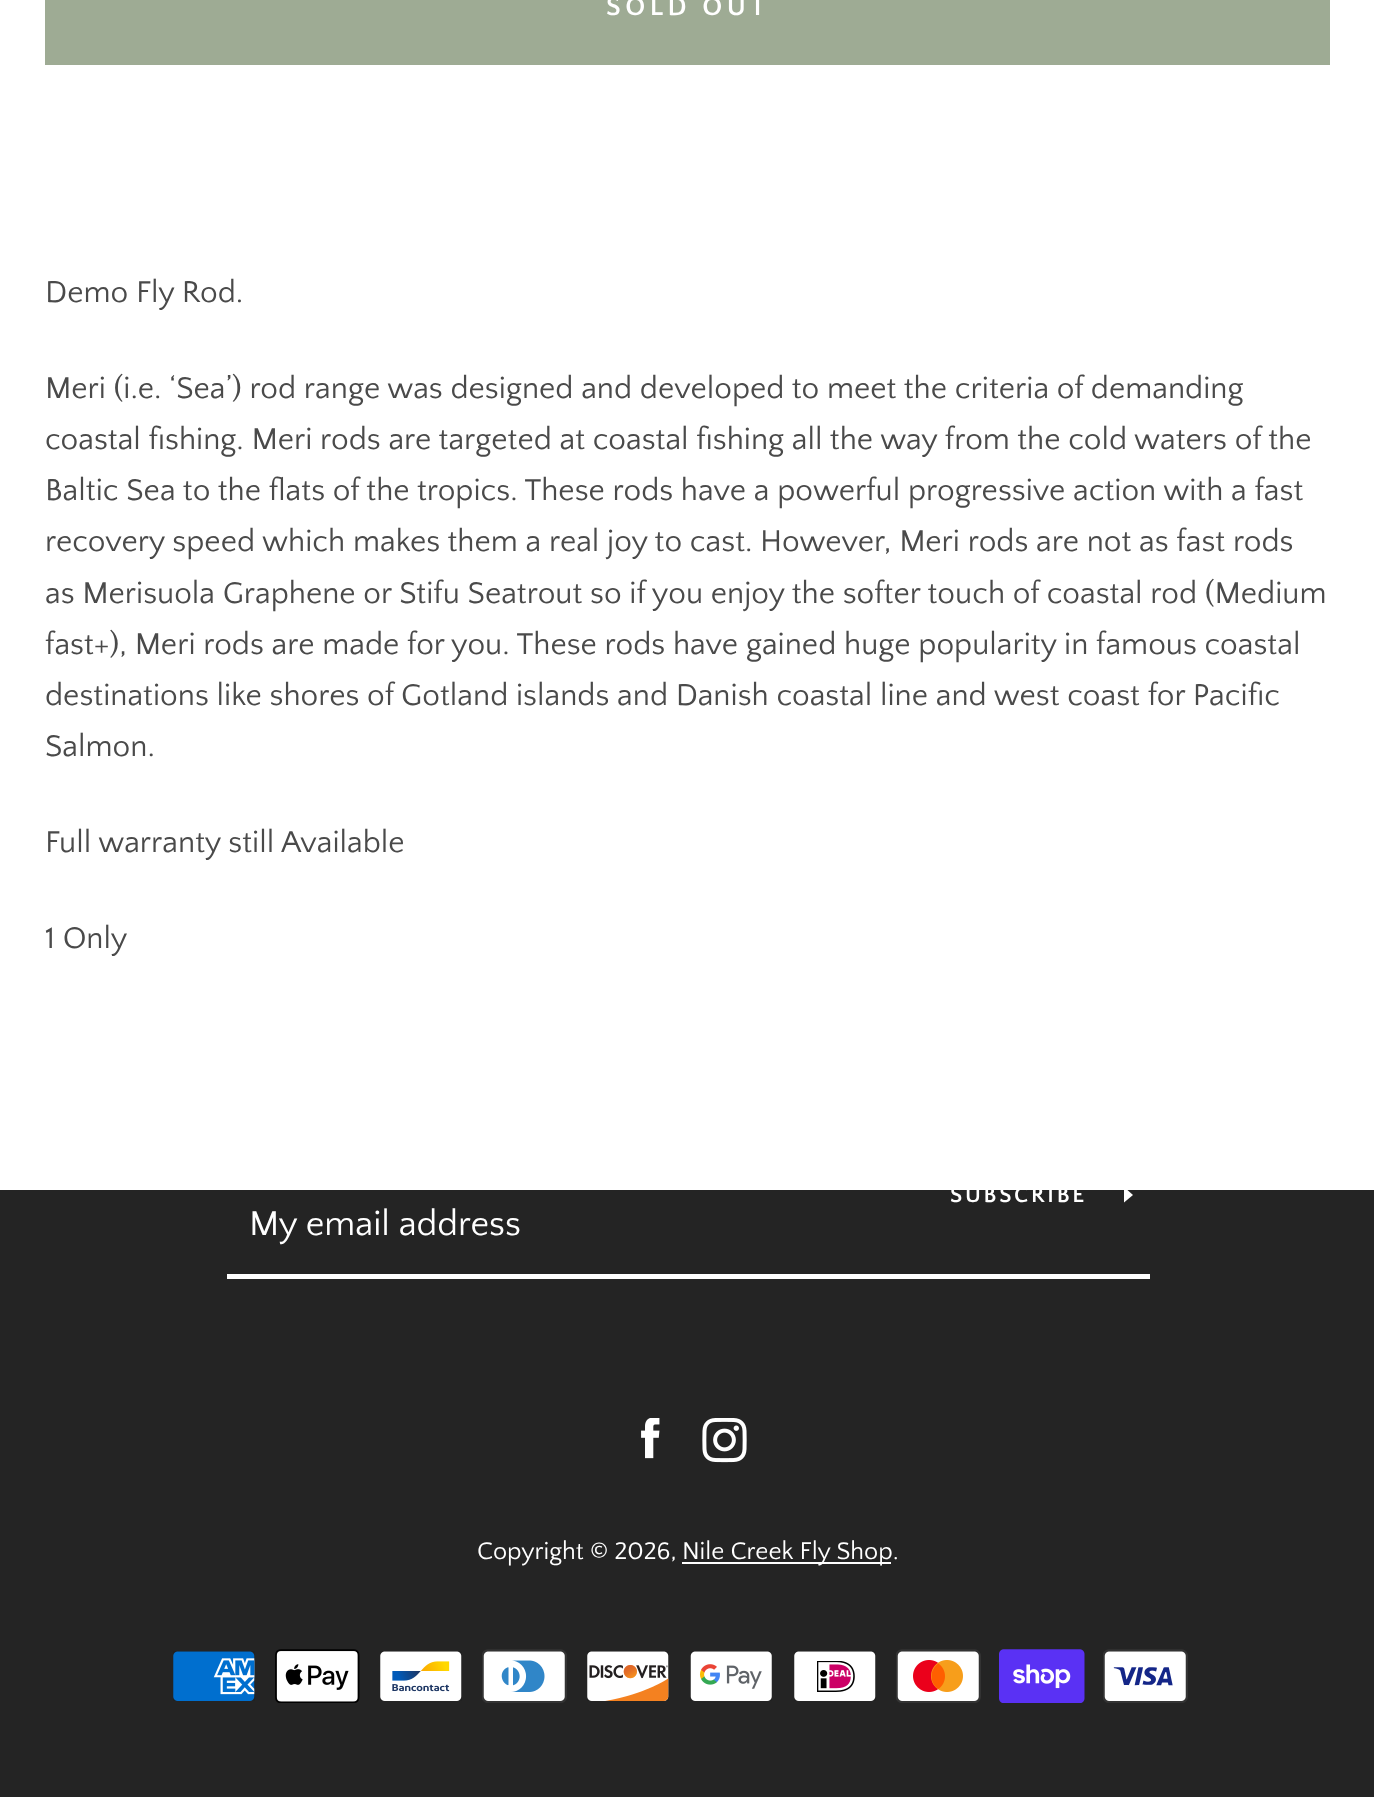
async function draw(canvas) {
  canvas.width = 1374;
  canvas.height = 1797;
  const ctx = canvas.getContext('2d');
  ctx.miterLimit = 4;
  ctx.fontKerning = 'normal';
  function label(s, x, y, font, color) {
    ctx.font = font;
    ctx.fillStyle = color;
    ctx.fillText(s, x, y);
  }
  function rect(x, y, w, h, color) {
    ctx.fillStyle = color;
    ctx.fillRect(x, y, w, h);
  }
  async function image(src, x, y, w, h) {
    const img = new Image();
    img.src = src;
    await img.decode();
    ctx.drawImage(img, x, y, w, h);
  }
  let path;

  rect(0, 0, 1374, 1797, '#242424');
  ctx.fillStyle = '#fff';
  path = new Path2D('M1133 1195L1124 1202.5V1187Z');
  ctx.fill(path);
  rect(0, 0, 1374, 1190, '#fff');
  rect(45, 0, 1285, 65, '#9eab94');
  ctx.letterSpacing = '4.5px';
  label('SOLD OUT', 606, 15, 'bold 27px Quattrocento Sans', '#fff');
  ctx.letterSpacing = '0px';
  label('Demo Fly Rod.', 45, 302, '31.5px Quattrocento Sans', '#4a4a4a');
  label('Meri (i.e. ‘Sea’) rod range was designed and developed to meet the criteria of demanding', 45, 398, '31.5px Quattrocento Sans', '#4a4a4a');
  label('coastal fishing. Meri rods are targeted at coastal fishing all the way from the cold waters of the', 45, 449, '31.5px Quattrocento Sans', '#4a4a4a');
  label('Baltic Sea to the flats of the tropics. These rods have a powerful progressive action with a fast', 45, 500, '31.5px Quattrocento Sans', '#4a4a4a');
  label('recovery speed which makes them a real joy to cast. However, Meri rods are not as fast rods', 45, 551, '31.5px Quattrocento Sans', '#4a4a4a');
  label('as Merisuola Graphene or Stifu Seatrout so if you enjoy the softer touch of coastal rod (Medium', 45, 603, '31.5px Quattrocento Sans', '#4a4a4a');
  label('fast+), Meri rods are made for you. These rods have gained huge popularity in famous coastal', 45, 654, '31.5px Quattrocento Sans', '#4a4a4a');
  label('destinations like shores of Gotland islands and Danish coastal line and west coast for Pacific', 45, 705, '31.5px Quattrocento Sans', '#4a4a4a');
  label('Salmon.', 45, 756, '31.5px Quattrocento Sans', '#4a4a4a');
  label('Full warranty still Available', 45, 852, '31.5px Quattrocento Sans', '#4a4a4a');
  label('1 Only', 45, 948, '31.5px Quattrocento Sans', '#4a4a4a');
  rect(227, 1274, 923, 5, '#fff');
  ctx.letterSpacing = '2.75px';
  label('SUBSCRIBE', 950, 1202, 'bold 22.5px Quattrocento Sans', '#fff');
  ctx.letterSpacing = '0px';
  label('My email address', 249, 1235, '36px Quattrocento Sans', '#fff');
  await image('assets/img1.png', 641, 1418, 19, 41);
  await image('assets/img2.png', 702, 1418, 45, 45);
  label('Copyright © 2026,', 477, 1559, '25.25px Quattrocento Sans', '#fff');
  rect(682, 1562, 209, 2, '#fff');
  label('Nile Creek Fly Shop.', 682, 1559, '25.25px Quattrocento Sans', '#fff');
  await image('assets/img3.png', 173, 1651, 82, 50);
  await image('assets/img4.png', 275, 1649, 85, 54);
  await image('assets/img5.png', 380, 1651, 82, 50);
  await image('assets/img6.png', 482, 1649, 85, 54);
  await image('assets/img7.png', 587, 1651, 82, 50);
  await image('assets/img8.png', 690, 1651, 82, 50);
  await image('assets/img9.png', 794, 1651, 82, 50);
  await image('assets/img10.png', 896, 1649, 85, 54);
  await image('assets/img11.png', 999, 1649, 86, 54);
  await image('assets/img12.png', 1103, 1649, 85, 54);
}

draw(document.querySelector('canvas'));
